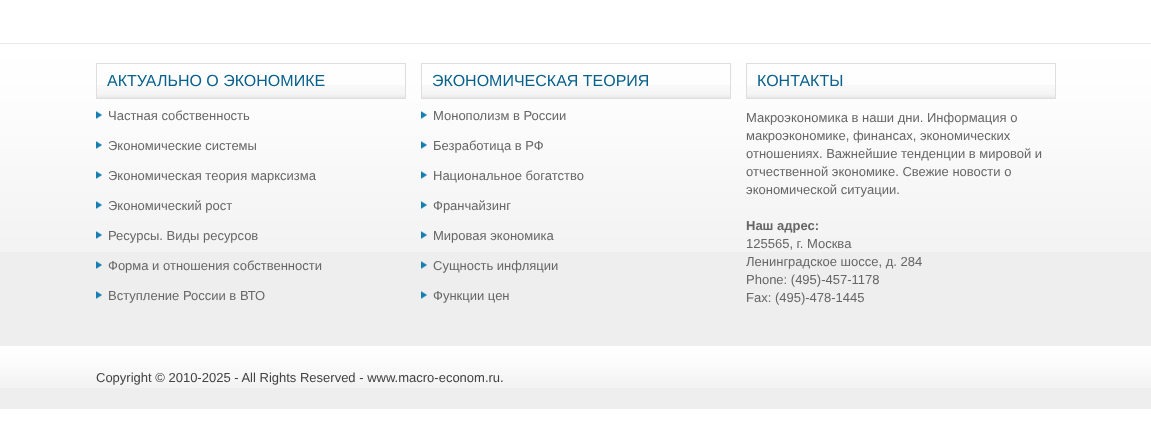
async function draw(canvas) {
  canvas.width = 1151;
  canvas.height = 424;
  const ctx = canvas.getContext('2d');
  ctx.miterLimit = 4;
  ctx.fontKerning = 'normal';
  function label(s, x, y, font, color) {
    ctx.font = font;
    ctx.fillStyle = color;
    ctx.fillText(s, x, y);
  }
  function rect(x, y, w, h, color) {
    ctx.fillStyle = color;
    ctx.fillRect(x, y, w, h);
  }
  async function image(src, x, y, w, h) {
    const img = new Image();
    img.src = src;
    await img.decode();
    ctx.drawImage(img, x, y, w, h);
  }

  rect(0, 0, 1151, 424, '#fff');
  rect(0, 43, 1151, 303, '#eee');
  await image('assets/img1.png', 0, 43, 1151, 209);
  await image('assets/img2.png', 97, 85, 308, 13);
  ctx.strokeStyle = '#dedede';
  ctx.strokeRect(96.5, 63.5, 309, 35);
  label('АКТУАЛЬНО О ЭКОНОМИКЕ', 107, 86, '16px Liberation Sans', '#07618c');
  await image('assets/img3.png', 96, 111, 6, 8);
  label('Частная собственность', 108, 120, '13px Liberation Sans', '#666');
  await image('assets/img4.png', 96, 141, 6, 8);
  label('Экономические системы', 108, 150, '13px Liberation Sans', '#666');
  await image('assets/img5.png', 96, 171, 6, 8);
  label('Экономическая теория марксизма', 108, 180, '13px Liberation Sans', '#666');
  await image('assets/img6.png', 96, 201, 6, 8);
  label('Экономический рост', 108, 210, '13px Liberation Sans', '#666');
  await image('assets/img7.png', 96, 231, 6, 8);
  label('Ресурсы. Виды ресурсов', 108, 240, '13px Liberation Sans', '#666');
  await image('assets/img8.png', 96, 261, 6, 8);
  label('Форма и отношения собственности', 108, 270, '13px Liberation Sans', '#666');
  await image('assets/img8.png', 96, 291, 6, 8);
  label('Вступление России в ВТО', 108, 300, '13px Liberation Sans', '#666');
  await image('assets/img2.png', 422, 85, 308, 13);
  ctx.strokeRect(421.5, 63.5, 309, 35);
  label('ЭКОНОМИЧЕСКАЯ ТЕОРИЯ', 432, 86, '16px Liberation Sans', '#07618c');
  await image('assets/img9.png', 421, 111, 6, 8);
  label('Монополизм в России', 433, 120, '13px Liberation Sans', '#666');
  await image('assets/img10.png', 421, 141, 6, 8);
  label('Безработица в РФ', 433, 150, '13px Liberation Sans', '#666');
  await image('assets/img11.png', 421, 171, 6, 8);
  label('Национальное богатство', 433, 180, '13px Liberation Sans', '#666');
  await image('assets/img12.png', 421, 201, 6, 8);
  label('Франчайзинг', 433, 210, '13px Liberation Sans', '#666');
  await image('assets/img13.png', 421, 231, 6, 8);
  label('Мировая экономика', 433, 240, '13px Liberation Sans', '#666');
  await image('assets/img14.png', 421, 261, 6, 8);
  label('Сущность инфляции', 433, 270, '13px Liberation Sans', '#666');
  await image('assets/img14.png', 421, 291, 6, 8);
  label('Функции цен', 433, 300, '13px Liberation Sans', '#666');
  await image('assets/img2.png', 747, 85, 308, 13);
  ctx.strokeRect(746.5, 63.5, 309, 35);
  label('КОНТАКТЫ', 757, 86, '16px Liberation Sans', '#07618c');
  label('Макроэкономика в наши дни. Информация о', 746, 122, '13px Liberation Sans', '#666');
  label('макроэкономике, финансах, экономических', 746, 140, '13px Liberation Sans', '#666');
  label('отношениях. Важнейшие тенденции в мировой и', 746, 158, '13px Liberation Sans', '#666');
  label('отчественной экономике. Свежие новости о', 746, 176, '13px Liberation Sans', '#666');
  label('экономической ситуации.', 746, 194, '13px Liberation Sans', '#666');
  label('Наш адрес:', 746, 230, 'bold 13px Liberation Sans', '#666');
  label('125565, г. Москва', 746, 248, '13px Liberation Sans', '#666');
  label('Ленинградское шоссе, д. 284', 746, 266, '13px Liberation Sans', '#666');
  label('Phone: (495)-457-1178', 746, 284, '13px Liberation Sans', '#666');
  label('Fax: (495)-478-1445', 746, 302, '13px Liberation Sans', '#666');
  rect(0, 388, 1151, 21, '#eee');
  await image('assets/img15.png', 0, 346, 1151, 42);
  label('Copyright © 2010-2025 - All Rights Reserved - www.macro-econom.ru.', 96, 382, '13px Liberation Sans', '#434141');
}

draw(document.querySelector('canvas'));
